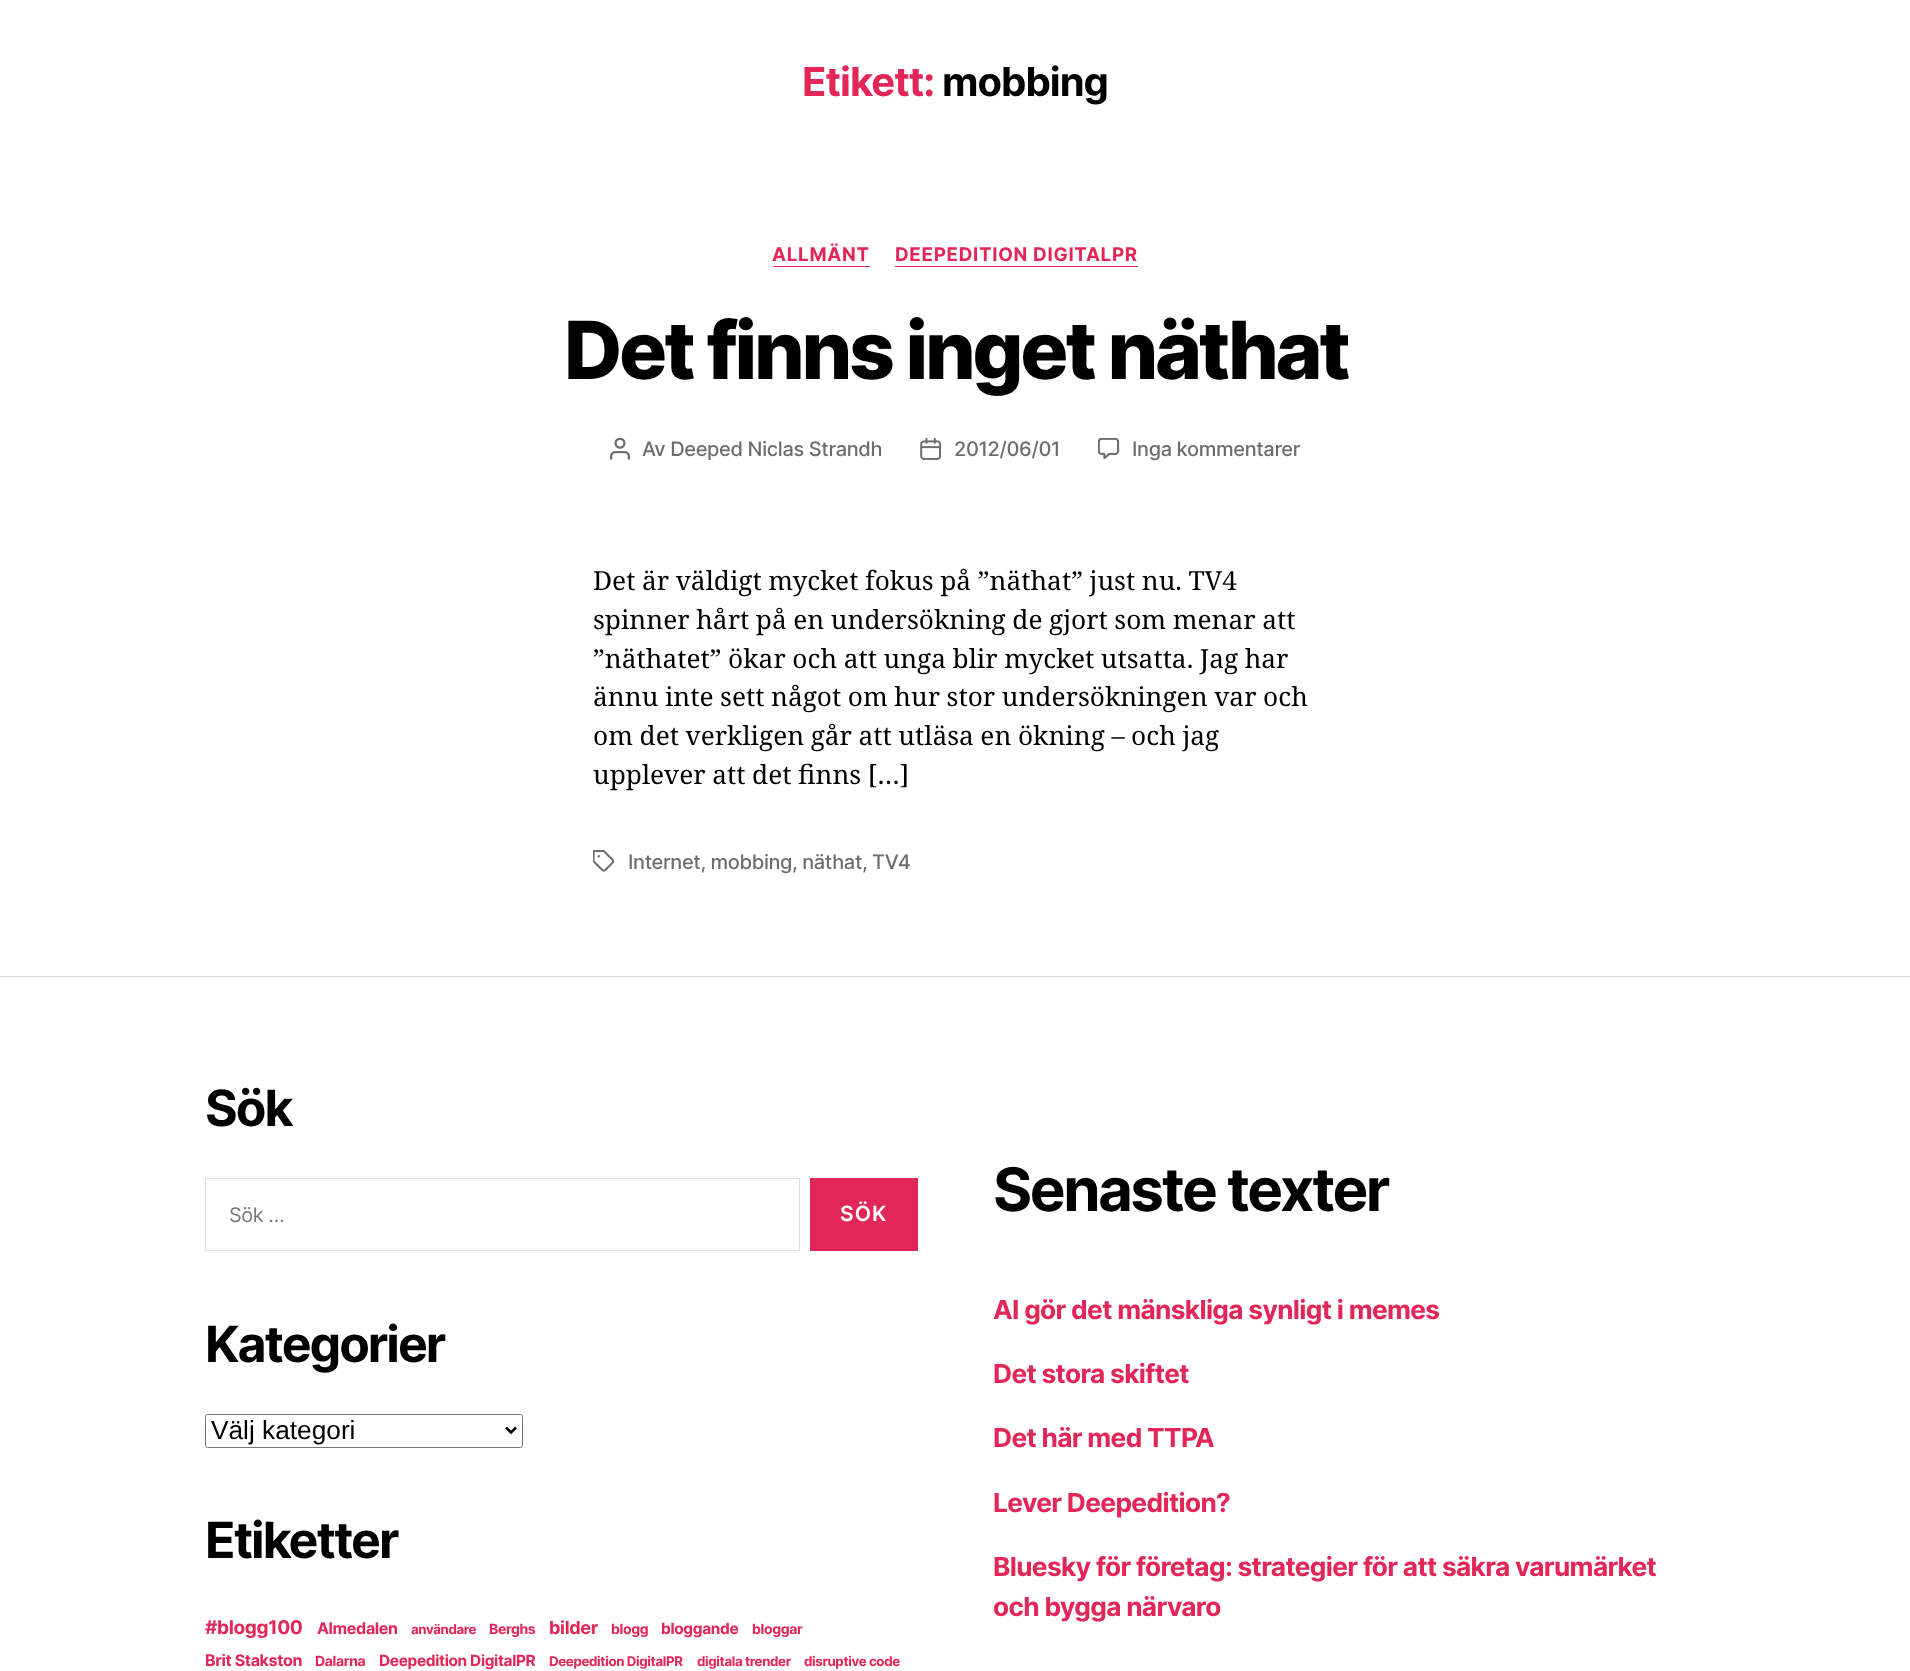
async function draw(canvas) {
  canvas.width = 1910;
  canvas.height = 1671;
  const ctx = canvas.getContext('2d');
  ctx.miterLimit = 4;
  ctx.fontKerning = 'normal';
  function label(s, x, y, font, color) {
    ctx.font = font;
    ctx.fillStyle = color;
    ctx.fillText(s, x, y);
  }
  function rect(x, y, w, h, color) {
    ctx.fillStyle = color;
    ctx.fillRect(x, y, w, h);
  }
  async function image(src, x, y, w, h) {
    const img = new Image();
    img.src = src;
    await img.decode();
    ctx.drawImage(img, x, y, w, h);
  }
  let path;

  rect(0, 0, 1910, 1671, '#fff');
  ctx.letterSpacing = '-1px';
  label('Etikett:', 802, 96, 'bold 40px Inter', '#e22658');
  label('mobbing', 942, 96, 'bold 40px Inter', '#000');
  rect(773, 266, 97, 1, '#e22658');
  ctx.letterSpacing = '0.7px';
  label('ALLMÄNT', 772, 261, 'bold 18.75px Inter', '#e22658');
  rect(895, 266, 243, 1, '#e22658');
  label('DEEPEDITION DIGITALPR', 895, 261, 'bold 18.75px Inter', '#e22658');
  ctx.letterSpacing = '-3.3px';
  label('Det finns inget näthat', 564, 379, '800 80px Inter', '#000');
  await image('assets/img1.png', 610, 438, 20, 22);
  ctx.letterSpacing = '-0.35px';
  label('Av Deeped Niclas Strandh', 642, 456, '500 20px Inter', '#6d6d6d');
  await image('assets/img2.png', 920, 438, 21, 22);
  label('2012/06/01', 954, 456, '500 20px Inter', '#6d6d6d');
  await image('assets/img3.png', 1098, 438, 22, 22);
  label('Inga kommentarer', 1132, 456, '500 20px Inter', '#6d6d6d');
  ctx.letterSpacing = '0px';
  ctx.wordSpacing = '-0.25px';
  label('Det är väldigt mycket fokus på ”näthat” just nu. TV4', 593, 590, '26.25px Noto Serif', '#000');
  label('spinner hårt på en undersökning de gjort som menar att', 593, 629, '26.25px Noto Serif', '#000');
  label('”näthatet” ökar och att unga blir mycket utsatta. Jag har', 593, 668, '26.25px Noto Serif', '#000');
  label('ännu inte sett något om hur stor undersökningen var och', 593, 706, '26.25px Noto Serif', '#000');
  label('om det verkligen går att utläsa en ökning – och jag', 593, 745, '26.25px Noto Serif', '#000');
  label('upplever att det finns […]', 593, 784, '26.25px Noto Serif', '#000');
  await image('assets/img4.png', 593, 850, 22, 22);
  ctx.letterSpacing = '-0.35px';
  ctx.wordSpacing = '0px';
  label('Internet, mobbing, näthat, TV4', 628, 869, '500 20px Inter', '#6d6d6d');
  rect(0, 976, 1910, 1, '#dbdbdb');
  ctx.letterSpacing = '-2px';
  label('Sök', 205, 1126, 'bold 50px Inter', '#000');
  ctx.strokeStyle = '#dedfdf';
  ctx.strokeRect(205.5, 1178.5, 594, 72);
  ctx.letterSpacing = '-0.5px';
  label('Sök …', 229, 1222, '20px Inter', '#757575');
  rect(810, 1178, 108, 73, '#e22658');
  ctx.letterSpacing = '1px';
  label('SÖK', 840, 1221, '600 21px Inter', '#fff');
  ctx.letterSpacing = '-2px';
  label('Kategorier', 205, 1362, 'bold 50px Inter', '#000');
  ctx.beginPath();
  ctx.roundRect(205.5, 1414.5, 317, 33, 2);
  ctx.strokeStyle = '#767676';
  ctx.stroke();
  path = new Path2D('M506 1427.5L511 1432.5L516 1427.5');
  ctx.strokeStyle = '#000';
  ctx.lineWidth = 2.5;
  ctx.stroke(path);
  ctx.letterSpacing = '0px';
  label('Välj kategori', 211, 1439, '26.25px Liberation Sans', '#000');
  ctx.letterSpacing = '-2px';
  label('Etiketter', 205, 1558, 'bold 50px Inter', '#000');
  ctx.letterSpacing = '-0.35px';
  label('#blogg100', 205, 1634, 'bold 19px Inter', '#e22658');
  label('Almedalen', 317, 1634, 'bold 16px Inter', '#e22658');
  label('användare', 411, 1634, 'bold 13.25px Inter', '#e22658');
  label('Berghs', 489, 1634, 'bold 14px Inter', '#e22658');
  label('bilder', 549, 1634, 'bold 18px Inter', '#e22658');
  label('blogg', 611, 1634, 'bold 14px Inter', '#e22658');
  label('bloggande', 661, 1634, 'bold 15.4px Inter', '#e22658');
  label('bloggar', 752, 1634, 'bold 14px Inter', '#e22658');
  label('Brit Stakston', 205, 1666, 'bold 16px Inter', '#e22658');
  label('Dalarna', 315, 1666, 'bold 14px Inter', '#e22658');
  label('Deepedition DigitalPR', 379, 1666, 'bold 15.4px Inter', '#e22658');
  label('Deepedition DigitalPR', 549, 1666, 'bold 13.25px Inter', '#e22658');
  label('digitala trender', 697, 1666, 'bold 13.25px Inter', '#e22658');
  label('disruptive code', 804, 1666, 'bold 13.25px Inter', '#e22658');
  ctx.letterSpacing = '-2.5px';
  label('Senaste texter', 993, 1211, 'bold 60px Inter', '#000');
  ctx.letterSpacing = '-0.65px';
  label('AI gör det mänskliga synligt i memes', 993, 1319, 'bold 26.25px Inter', '#e22658');
  label('Det stora skiftet', 993, 1383, 'bold 26.25px Inter', '#e22658');
  label('Det här med TTPA', 993, 1447, 'bold 26.25px Inter', '#e22658');
  label('Lever Deepedition?', 993, 1512, 'bold 26.25px Inter', '#e22658');
  label('Bluesky för företag: strategier för att säkra varumärket', 993, 1576, 'bold 26.25px Inter', '#e22658');
  label('och bygga närvaro', 993, 1616, 'bold 26.25px Inter', '#e22658');
}

draw(document.querySelector('canvas'));
